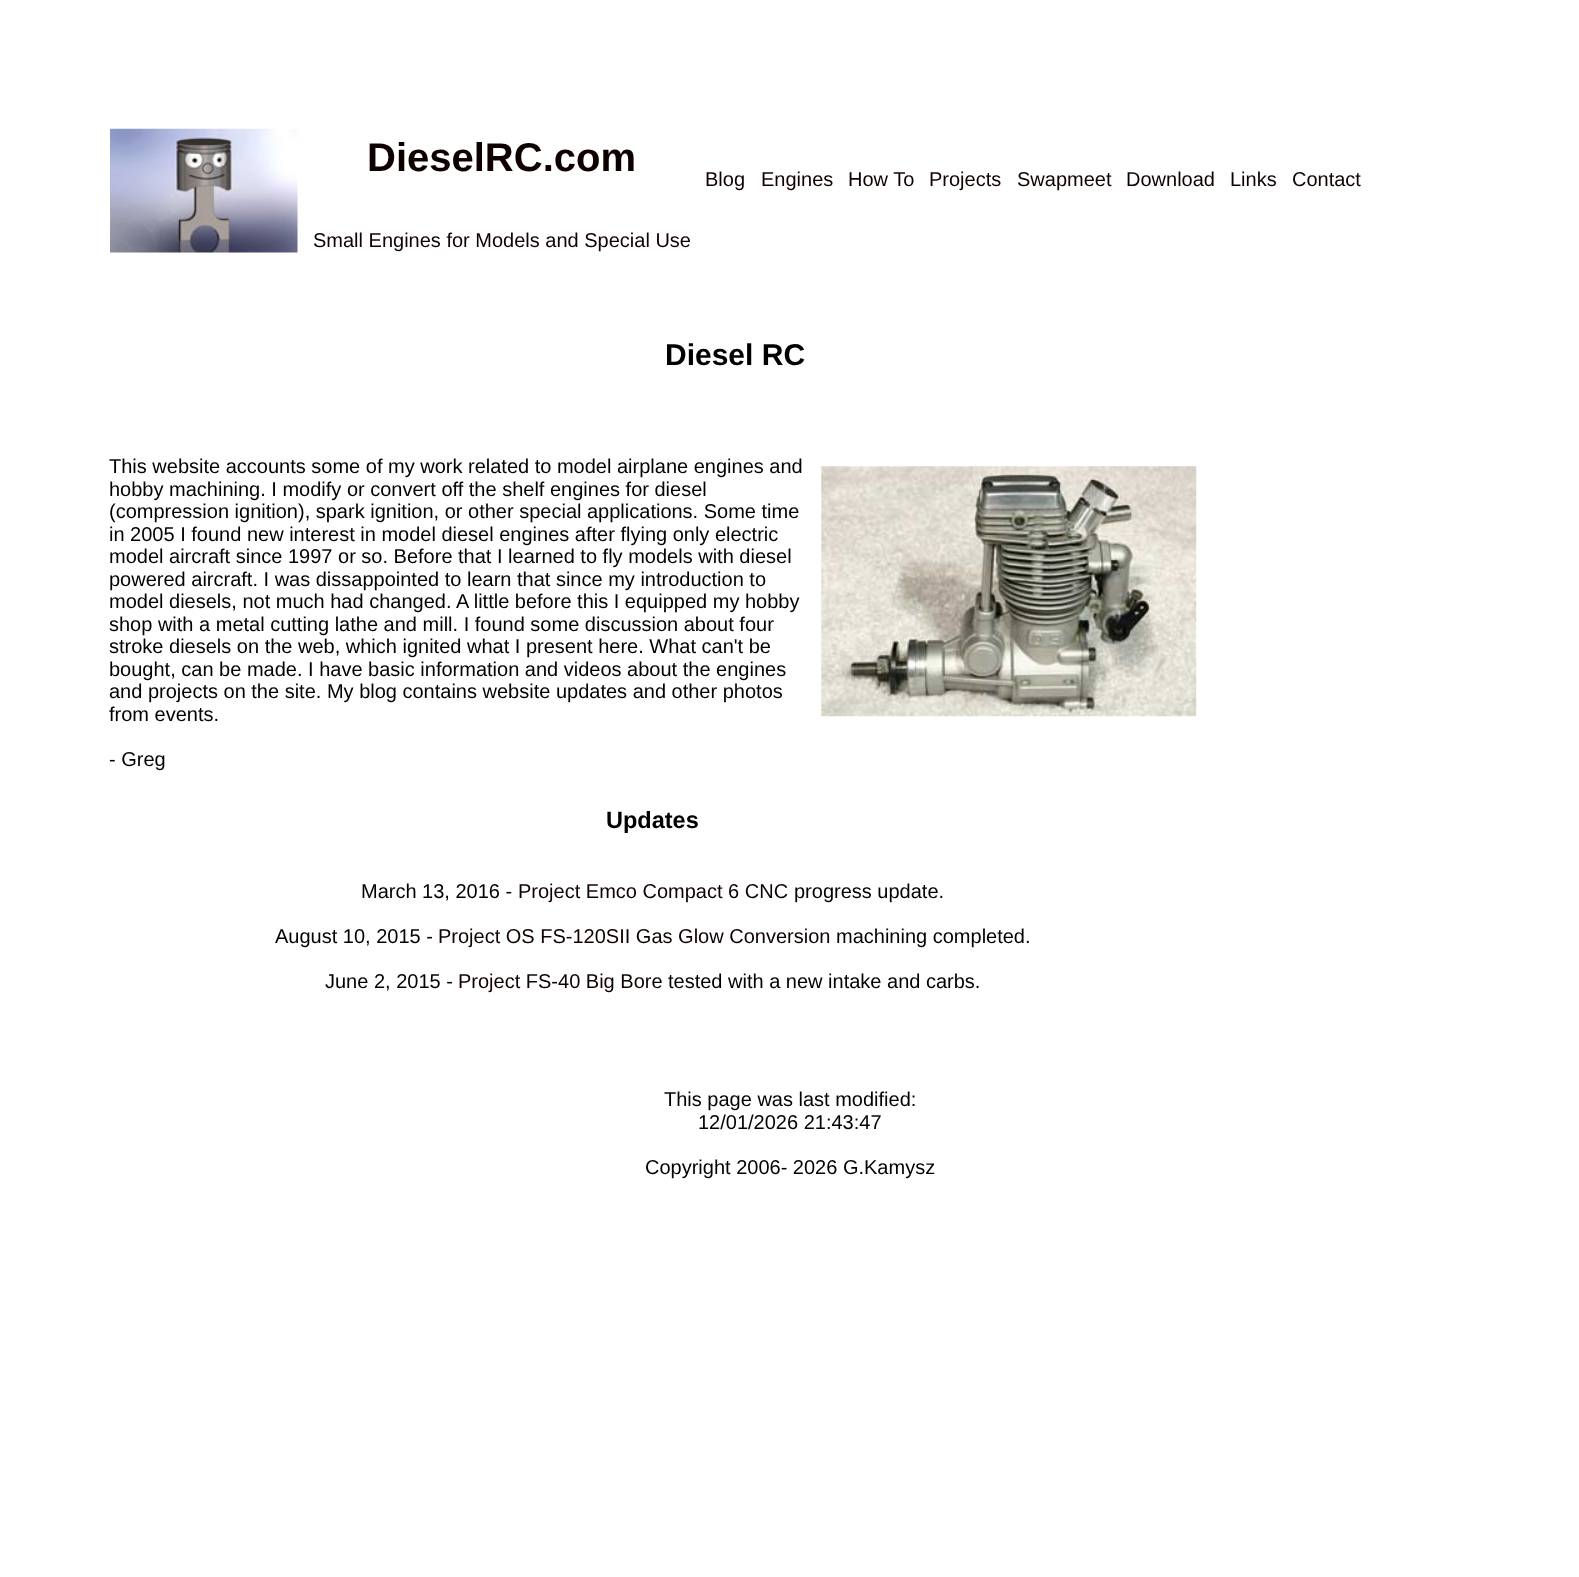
async function draw(canvas) {
  canvas.width = 1579;
  canvas.height = 1577;
  const ctx = canvas.getContext('2d');
  ctx.miterLimit = 4;
  ctx.fontKerning = 'normal';
  function label(s, x, y, font, color) {
    ctx.font = font;
    ctx.fillStyle = color;
    ctx.fillText(s, x, y);
  }
  function rect(x, y, w, h, color) {
    ctx.fillStyle = color;
    ctx.fillRect(x, y, w, h);
  }
  async function image(src, x, y, w, h) {
    const img = new Image();
    img.src = src;
    await img.decode();
    ctx.drawImage(img, x, y, w, h);
  }

  rect(0, 0, 1579, 1577, '#fff');
  await image('assets/img1.png', 110, 128, 188, 125);
  label('DieselRC.com', 367, 171, 'bold 40px Liberation Sans', '#0f0000');
  label('Small Engines for Models and Special Use', 313, 247, '20px Liberation Sans', '#0f0000');
  label('Blog', 705, 186, '20px Liberation Sans', '#0f0000');
  label('Engines', 761, 186, '20px Liberation Sans', '#0f0000');
  label('How To', 848, 186, '20px Liberation Sans', '#0f0000');
  label('Projects', 929, 186, '20px Liberation Sans', '#0f0000');
  label('Swapmeet', 1017, 186, '20px Liberation Sans', '#0f0000');
  label('Download', 1126, 186, '20px Liberation Sans', '#0f0000');
  label('Links', 1230, 186, '20px Liberation Sans', '#0f0000');
  label('Contact', 1292, 186, '20px Liberation Sans', '#0f0000');
  label('Diesel RC', 665, 365, 'bold 30px Liberation Sans', '#000');
  label('This website accounts some of my work related to model airplane engines and', 109, 473, '20px Liberation Sans', '#000');
  label('hobby machining. I modify or convert off the shelf engines for diesel', 109, 496, '20px Liberation Sans', '#000');
  label('(compression ignition), spark ignition, or other special applications. Some time', 109, 518, '20px Liberation Sans', '#000');
  label('in 2005 I found new interest in model diesel engines after flying only electric', 109, 541, '20px Liberation Sans', '#000');
  label('model aircraft since 1997 or so. Before that I learned to fly models with diesel', 109, 563, '20px Liberation Sans', '#000');
  label('powered aircraft. I was dissappointed to learn that since my introduction to', 109, 586, '20px Liberation Sans', '#000');
  label('model diesels, not much had changed. A little before this I equipped my hobby', 109, 608, '20px Liberation Sans', '#000');
  label('shop with a metal cutting lathe and mill. I found some discussion about four', 109, 631, '20px Liberation Sans', '#000');
  label('stroke diesels on the web, which ignited what I present here. What can\'t be', 109, 653, '20px Liberation Sans', '#000');
  label('bought, can be made. I have basic information and videos about the engines', 109, 676, '20px Liberation Sans', '#000');
  label('and projects on the site. My blog contains website updates and other photos', 109, 698, '20px Liberation Sans', '#000');
  label('from events.', 109, 721, '20px Liberation Sans', '#000');
  label('- Greg', 109, 766, '20px Liberation Sans', '#000');
  await image('assets/img2.png', 821, 466, 376, 251);
  label('Updates', 606, 828, 'bold 23.5px Liberation Sans', '#000');
  label('March 13, 2016 -', 361, 898, '20px Liberation Sans', '#000');
  label('Project Emco Compact 6 CNC', 518, 898, '20px Liberation Sans', '#0f0000');
  label('progress update.', 794, 898, '20px Liberation Sans', '#000');
  label('August 10, 2015 -', 275, 943, '20px Liberation Sans', '#000');
  label('Project OS FS-120SII Gas Glow Conversion', 438, 943, '20px Liberation Sans', '#0f0000');
  label('machining completed.', 836, 943, '20px Liberation Sans', '#000');
  label('June 2, 2015 -', 325, 988, '20px Liberation Sans', '#000');
  label('Project FS-40 Big Bore', 458, 988, '20px Liberation Sans', '#0f0000');
  label('tested with a new intake and carbs.', 668, 988, '20px Liberation Sans', '#000');
  label('This page was last modified:', 664, 1106, '20px Liberation Sans', '#000');
  label('12/01/2026 21:43:47', 698, 1129, '20px Liberation Sans', '#000');
  label('Copyright 2006- 2026 G.Kamysz', 645, 1174, '20px Liberation Sans', '#000');
}

draw(document.querySelector('canvas'));
